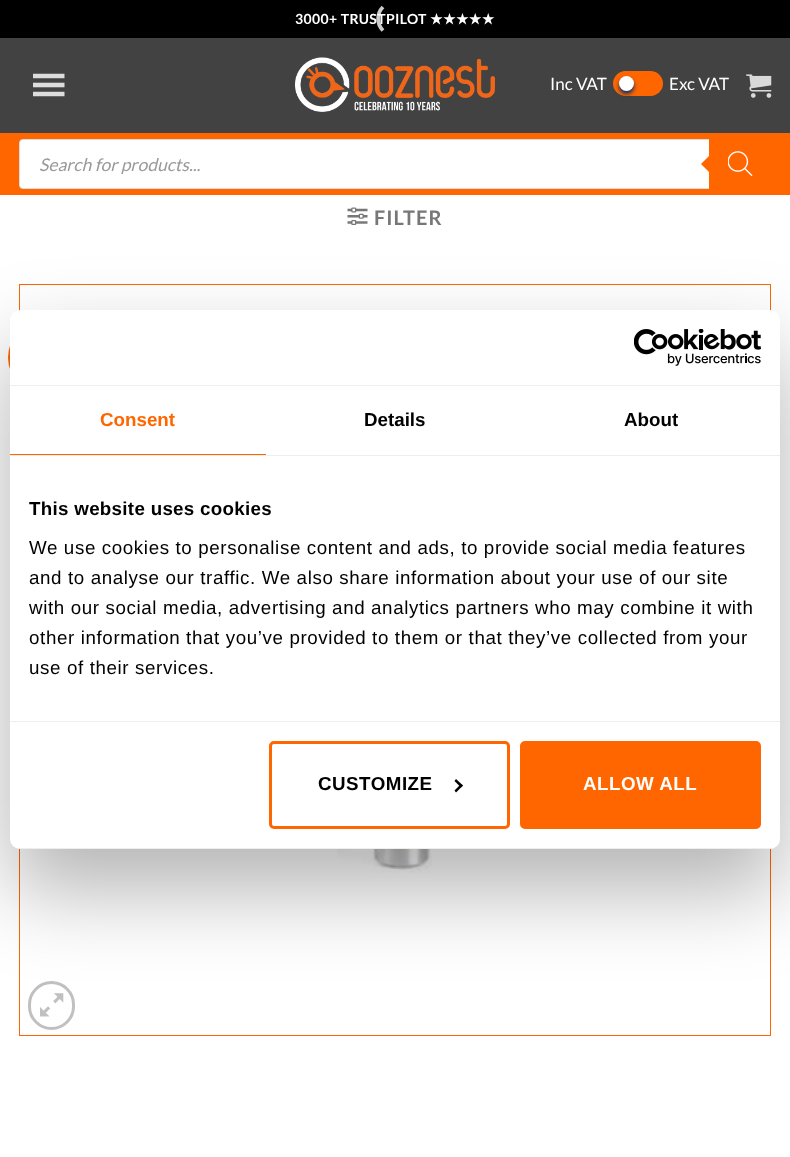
async function draw(canvas) {
  canvas.width = 790;
  canvas.height = 1157;
  const ctx = canvas.getContext('2d');
  ctx.miterLimit = 4;
  ctx.fontKerning = 'normal';
  function label(s, x, y, font, color) {
    ctx.font = font;
    ctx.fillStyle = color;
    ctx.fillText(s, x, y);
  }
  function rect(x, y, w, h, color) {
    ctx.fillStyle = color;
    ctx.fillRect(x, y, w, h);
  }
  function roundedRect(x, y, w, h, r, color) {
    ctx.fillStyle = color;
    ctx.beginPath();
    ctx.roundRect(x, y, w, h, r);
    ctx.fill();
  }
  async function image(src, x, y, w, h) {
    const img = new Image();
    img.src = src;
    await img.decode();
    ctx.drawImage(img, x, y, w, h);
  }
  let path;

  rect(0, 0, 790, 1157, '#fff');
  rect(0, 0, 790, 38, '#000');
  path = new Path2D('M383 7C386 3.5 390.5 2 395 2C415 2 418 31.5 398.5 35.5C393 36.5 387 34.5 383 30.5');
  ctx.strokeStyle = '#00000014';
  ctx.lineWidth = 3.8;
  ctx.stroke(path);
  ctx.letterSpacing = '0.4px';
  label('3000+ TRUSTPILOT', 295, 24, 'bold 14px Lato', '#fff');
  path = new Path2D('M383 30.5C376.5 24 376.5 13.5 383 7');
  ctx.strokeStyle = '#ffffffcc';
  ctx.stroke(path);
  label('★★★★★', 430, 24, 'bold 14px DejaVu Sans', '#fff');
  rect(0, 38, 790, 95, '#424242');
  await image('assets/img1.png', 33, 73, 32, 24);
  await image('assets/img2.png', 295, 57, 200, 55);
  ctx.letterSpacing = '0px';
  label('Inc VAT', 550, 90, '17px Lato', '#fff');
  roundedRect(613, 71, 50, 25, 12.5, '#f60');
  ctx.fillStyle = '#002c67';
  ctx.filter = 'blur(2px)';
  ctx.beginPath();
  ctx.roundRect(619, 79, 15, 15, 7.5);
  ctx.fill();
  ctx.filter = 'none';
  ctx.fillStyle = '#fff';
  ctx.beginPath();
  ctx.arc(626.5, 83.5, 7.5, 0, 2 * Math.PI);
  ctx.fill();
  label('Exc VAT', 669, 90, '17px Lato', '#fff');
  await image('assets/img3.png', 746, 74, 26, 24);
  rect(0, 133, 790, 62, '#f60');
  ctx.fillStyle = '#fff';
  ctx.beginPath();
  ctx.roundRect(19.5, 139.5, 751, 49, 3.5);
  ctx.fill();
  ctx.strokeStyle = '#ddd';
  ctx.lineWidth = 1;
  ctx.stroke();
  label('Search for products...', 39, 171, 'italic 17.5px Lato', '#999');
  ctx.fillStyle = '#f60';
  ctx.beginPath();
  ctx.roundRect(709, 139, 62, 50, [0, 2.5, 2.5, 0]);
  ctx.fill();
  path = new Path2D('M711 154V174L701 164Z');
  ctx.fill(path);
  await image('assets/img4.png', 728, 151, 25, 26);
  await image('assets/img5.png', 347, 207, 21, 18);
  ctx.letterSpacing = '1px';
  label('FILTER', 374, 225, 'bold 20px Lato', '#777');
  ctx.strokeStyle = '#f60';
  ctx.strokeRect(19.5, 284.5, 751, 751);
  await image('assets/img6.png', 337, 849, 95, 24);
  ctx.fillStyle = '#f60';
  ctx.beginPath();
  ctx.arc(44.5, 357.5, 36.5, 0, 2 * Math.PI);
  ctx.fill();
  ctx.beginPath();
  ctx.roundRect(29.5, 982.5, 44, 46, 22);
  ctx.strokeStyle = '#c0c0c0';
  ctx.lineWidth = 3;
  ctx.stroke();
  await image('assets/img7.png', 40, 993, 24, 24);
  ctx.fillStyle = '#0000004d';
  ctx.filter = 'blur(42.5px)';
  ctx.beginPath();
  ctx.roundRect(10, 350, 770, 539, 10);
  ctx.fill();
  ctx.filter = 'none';
  roundedRect(10, 310, 770, 539, 10, '#fff');
  rect(10, 385, 770, 1, '#eee');
  await image('assets/img8.png', 634, 329, 127, 37);
  rect(10, 455, 770, 1, '#eee');
  rect(10, 454, 256, 1, '#f60');
  ctx.letterSpacing = '0px';
  label('Consent', 100, 426, 'bold 18.75px Liberation Sans', '#f60');
  label('Details', 364, 426, 'bold 18.75px Liberation Sans', '#000');
  label('About', 624, 426, 'bold 18.75px Liberation Sans', '#000');
  rect(10, 721, 770, 1, '#eee');
  ctx.letterSpacing = '0.3px';
  label('This website uses cookies', 29, 515, 'bold 18.75px Liberation Sans', '#000');
  ctx.letterSpacing = '0.62px';
  label('We use cookies to personalise content and ads, to provide social media features', 29, 554, '18.75px Liberation Sans', '#000');
  label('and to analyse our traffic. We also share information about your use of our site', 29, 584, '18.75px Liberation Sans', '#000');
  label('with our social media, advertising and analytics partners who may combine it with', 29, 614, '18.75px Liberation Sans', '#000');
  label('other information that you’ve provided to them or that they’ve collected from your', 29, 644, '18.75px Liberation Sans', '#000');
  label('use of their services.', 29, 674, '18.75px Liberation Sans', '#000');
  ctx.save();
  ctx.beginPath();
  ctx.roundRect(10, 310, 770, 539, 10);
  ctx.clip();
  rect(10, 848, 770, 1, '#eee');
  ctx.restore();
  ctx.beginPath();
  ctx.roundRect(270.5, 742.5, 238, 85, 3.5);
  ctx.strokeStyle = '#f60';
  ctx.stroke();
  ctx.letterSpacing = '0.5px';
  label('CUSTOMIZE', 318, 790, 'bold 18.75px Liberation Sans', '#000');
  path = new Path2D('M456 779L463 785.5L461 787.5L454.5 781Z');
  ctx.fill(path);
  path = new Path2D('M461 784L463 785.5L456 792.5L454.5 790.5Z');
  ctx.fill(path);
  ctx.fillStyle = '#f60';
  ctx.beginPath();
  ctx.roundRect(521.5, 742.5, 238, 85, 3.5);
  ctx.fill();
  ctx.stroke();
  label('ALLOW ALL', 583, 790, 'bold 18.75px Liberation Sans', '#fff');
}

draw(document.querySelector('canvas'));
